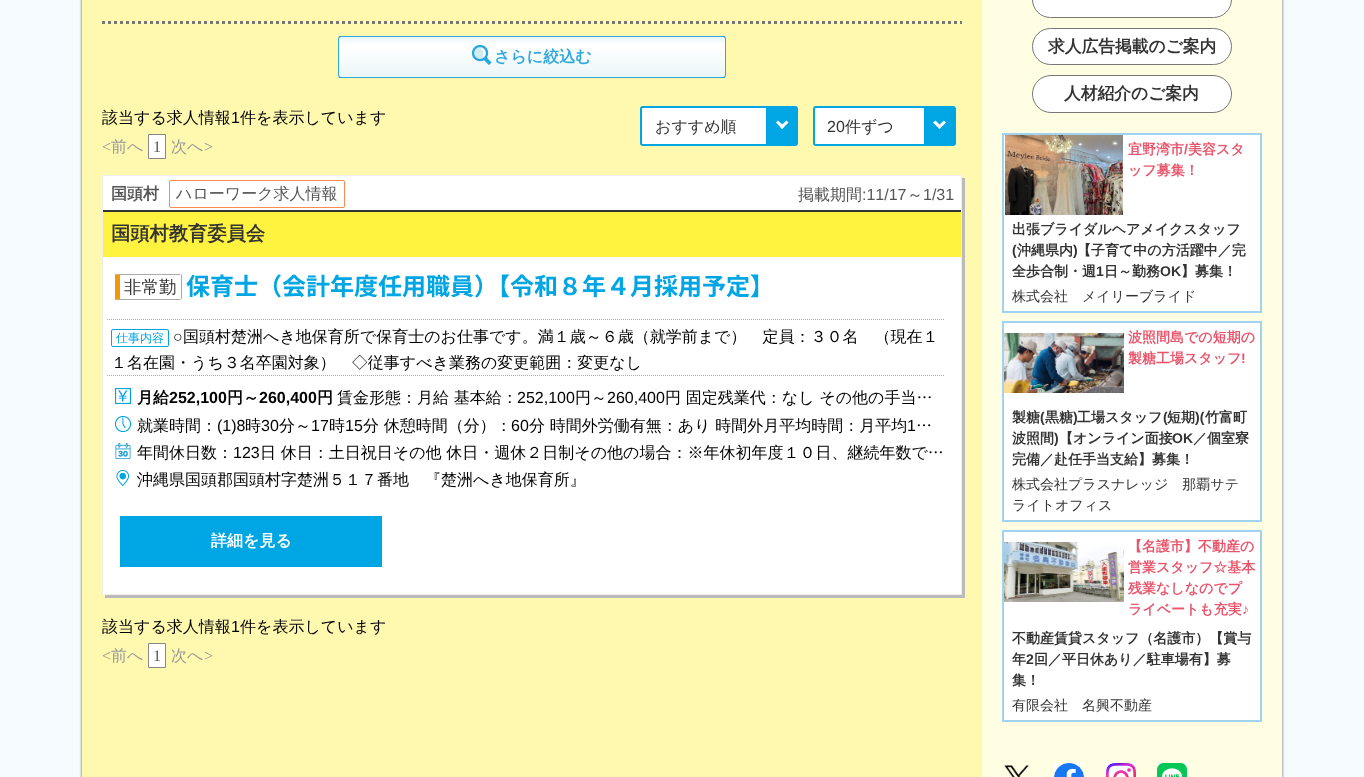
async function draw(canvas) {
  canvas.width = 1364;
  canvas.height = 777;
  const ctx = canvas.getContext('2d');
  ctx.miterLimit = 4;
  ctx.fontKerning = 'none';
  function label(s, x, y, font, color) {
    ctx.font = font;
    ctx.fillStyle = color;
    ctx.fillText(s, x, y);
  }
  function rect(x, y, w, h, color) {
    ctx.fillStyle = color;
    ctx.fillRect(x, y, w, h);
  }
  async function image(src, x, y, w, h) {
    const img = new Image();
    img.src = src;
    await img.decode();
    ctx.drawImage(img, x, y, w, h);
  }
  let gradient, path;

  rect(0, 0, 1364, 777, '#f5fbfe');
  ctx.fillStyle = '#555';
  ctx.filter = 'blur(1.5px)';
  ctx.beginPath();
  ctx.rect(82, -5, 1200, 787);
  ctx.fill();
  ctx.filter = 'none';
  rect(82, 0, 900, 777, '#fff9b0');
  path = new Path2D('M102 22.5H962');
  ctx.strokeStyle = '#777';
  ctx.lineWidth = 3;
  ctx.setLineDash([3, 3]);
  ctx.stroke(path);
  ctx.fillStyle = '#004ea2';
  ctx.filter = 'blur(0.5px)';
  ctx.beginPath();
  ctx.roundRect(338, 36, 388, 42, 3);
  ctx.fill();
  ctx.filter = 'none';
  ctx.save();
  ctx.beginPath();
  ctx.roundRect(338, 36, 388, 42, 3);
  ctx.clip();
  gradient = ctx.createLinearGradient(339, 37, 339, 77);
  gradient.addColorStop(0, '#ebf6f7');
  gradient.addColorStop(0.2, '#fff');
  gradient.addColorStop(1, '#ebf6f7');
  ctx.fillStyle = gradient;
  ctx.fillRect(338, 37, 388, 40);
  ctx.restore();
  ctx.beginPath();
  ctx.roundRect(338.5, 36.5, 387, 41, 2.5);
  ctx.strokeStyle = '#2fa8e0';
  ctx.lineWidth = 1;
  ctx.setLineDash([]);
  ctx.stroke();
  await image('assets/img1.png', 472, 45, 20, 20);
  label('さらに絞込む', 494, 62, 'bold 16px WenQuanYi Zen Hei', '#2fa8e0');
  label('該当する求人情報', 102, 123, '500 16px WenQuanYi Zen Hei', '#000');
  label('1', 231, 123, '16px Liberation Sans', '#000');
  label('件を表示しています', 240, 123, '500 16px WenQuanYi Zen Hei', '#000');
  ctx.fillStyle = '#fff';
  ctx.beginPath();
  ctx.roundRect(641, 107, 155, 38, 2);
  ctx.fill();
  ctx.strokeStyle = '#00a5e3';
  ctx.lineWidth = 2;
  ctx.stroke();
  label('おすすめ順', 655, 132, '500 16px WenQuanYi Zen Hei', '#333');
  ctx.fillStyle = '#00a5e3';
  ctx.beginPath();
  ctx.roundRect(766, 106, 32, 40, [0, 3, 3, 0]);
  ctx.fill();
  ctx.fillStyle = '#fff';
  path = new Path2D('M786.5 120.5L788.5 122.5L782 129L780 126.5Z');
  ctx.fill(path);
  path = new Path2D('M778 120.5L784.5 126.5L782 129L776 122.5Z');
  ctx.fill(path);
  ctx.beginPath();
  ctx.roundRect(814, 107, 139, 38, 2);
  ctx.fill();
  ctx.stroke();
  label('20', 827, 132, '16px Liberation Sans', '#333');
  label('件ずつ', 845, 132, '500 16px WenQuanYi Zen Hei', '#333');
  ctx.fillStyle = '#00a5e3';
  ctx.beginPath();
  ctx.roundRect(924, 106, 32, 40, [0, 3, 3, 0]);
  ctx.fill();
  ctx.fillStyle = '#fff';
  path = new Path2D('M944 120.5L946 122.5L939.5 129L937.5 126.5Z');
  ctx.fill(path);
  path = new Path2D('M935.5 120.5L941.5 126.5L939.5 129L933 122.5Z');
  ctx.fill(path);
  label('<', 102, 152, '16px Liberation Serif', '#999');
  label('前へ', 111, 152, '500 16px WenQuanYi Zen Hei', '#999');
  ctx.fillStyle = '#fff';
  ctx.beginPath();
  ctx.rect(148.5, 134.5, 17, 24);
  ctx.fill();
  ctx.strokeStyle = '#888';
  ctx.lineWidth = 1;
  ctx.stroke();
  label('1', 153, 152, '16px Liberation Serif', '#555');
  label('次へ', 171, 152, '500 16px WenQuanYi Zen Hei', '#999');
  label('>', 204, 152, '16px Liberation Serif', '#999');
  ctx.fillStyle = '#bbb';
  ctx.filter = 'blur(0.5px)';
  ctx.beginPath();
  ctx.rect(105, 178, 860, 420);
  ctx.fill();
  ctx.filter = 'none';
  ctx.fillStyle = '#fff';
  ctx.beginPath();
  ctx.rect(102.5, 175.5, 859, 419);
  ctx.fill();
  ctx.strokeStyle = '#eee';
  ctx.stroke();
  label('国頭村', 111, 199, 'bold 16px WenQuanYi Zen Hei', '#555');
  ctx.beginPath();
  ctx.roundRect(169.5, 180.5, 175, 27, 1.5);
  ctx.strokeStyle = '#f85';
  ctx.stroke();
  label('ハローワーク求人情報', 176, 199, '500 16px WenQuanYi Zen Hei', '#555');
  label('掲載期間', 798, 200, '500 16px WenQuanYi Zen Hei', '#555');
  label(':11/17', 862, 200, '16px Liberation Sans', '#555');
  label('～', 907, 200, '500 16px WenQuanYi Zen Hei', '#555');
  label('1/31', 923, 200, '16px Liberation Sans', '#555');
  rect(103, 212, 858, 45, '#fff33f');
  rect(103, 210, 858, 2, '#333');
  label('国頭村教育委員会', 111, 240, 'bold 19.25px WenQuanYi Zen Hei', '#333');
  ctx.fillStyle = '#aaa';
  path = new Path2D('M115 274L120 275H181L180 274Z');
  ctx.fill(path);
  path = new Path2D('M182 298V276C182 275.5 182 275 181.5 274.5L181 275V299L181.5 299.5Z');
  ctx.fill(path);
  path = new Path2D('M180 300L181 299H120L115 300Z');
  ctx.fill(path);
  ctx.fillStyle = '#f39806';
  path = new Path2D('M120 275L115 274V300L120 299Z');
  ctx.fill(path);
  label('非常勤', 124, 293, '500 17.5px WenQuanYi Zen Hei', '#333');
  label('保育士（会計年度任用職員）【令和８年４月採用予定】', 186, 295, 'bold 24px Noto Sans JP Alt', '#00a5e3');
  path = new Path2D('M107 319.5H945');
  ctx.strokeStyle = '#aaa';
  ctx.setLineDash([1, 1]);
  ctx.stroke(path);
  path = new Path2D('M107 375.5H945');
  ctx.stroke(path);
  ctx.beginPath();
  ctx.roundRect(111.5, 329.5, 57, 17, 1.5);
  ctx.strokeStyle = '#00a5e3';
  ctx.setLineDash([]);
  ctx.stroke();
  label('仕事内容', 116, 342, '500 12px WenQuanYi Zen Hei', '#00a5e3');
  label('○', 173, 342, '16px Liberation Sans', '#000');
  label('国頭村楚洲へき地保育所で保育士のお仕事です。満１歳～６歳（就学前まで）　定員：３０名　（現在１', 183, 342, '500 16px WenQuanYi Zen Hei', '#000');
  label('１名在園・うち３名卒園対象）　◇従事すべき業務の変更範囲：変更なし', 111, 368, '500 16px WenQuanYi Zen Hei', '#000');
  await image('assets/img2.png', 115, 388, 16, 16);
  label('月給', 137, 403, 'bold 16px WenQuanYi Zen Hei', '#000');
  label('252,100', 169, 403, 'bold 16px Liberation Sans', '#000');
  label('円～', 227, 403, 'bold 16px WenQuanYi Zen Hei', '#000');
  label('260,400', 259, 403, 'bold 16px Liberation Sans', '#000');
  label('円', 317, 403, 'bold 16px WenQuanYi Zen Hei', '#000');
  label('賃金形態：月給 基本給：', 337, 403, '500 16px WenQuanYi Zen Hei', '#000');
  label('252,100', 517, 403, '16px Liberation Sans', '#000');
  label('円～', 575, 403, '500 16px WenQuanYi Zen Hei', '#000');
  label('260,400', 607, 403, '16px Liberation Sans', '#000');
  label('円 固定残業代：なし その他の手当…', 665, 403, '500 16px WenQuanYi Zen Hei', '#000');
  await image('assets/img3.png', 115, 416, 16, 16);
  label('就業時間：', 137, 431, '500 16px WenQuanYi Zen Hei', '#000');
  label('(1)8', 217, 431, '16px Liberation Sans', '#000');
  label('時', 245, 431, '500 16px WenQuanYi Zen Hei', '#000');
  label('30', 261, 431, '16px Liberation Sans', '#000');
  label('分～', 279, 431, '500 16px WenQuanYi Zen Hei', '#000');
  label('17', 311, 431, '16px Liberation Sans', '#000');
  label('時', 329, 431, '500 16px WenQuanYi Zen Hei', '#000');
  label('15', 345, 431, '16px Liberation Sans', '#000');
  label('分 休憩時間（分）：', 363, 431, '500 16px WenQuanYi Zen Hei', '#000');
  label('60', 511, 431, '16px Liberation Sans', '#000');
  label('分 時間外労働有無：あり 時間外月平均時間：月平均', 529, 431, '500 16px WenQuanYi Zen Hei', '#000');
  label('1', 907, 431, '16px Liberation Sans', '#000');
  label('…', 916, 431, '500 16px WenQuanYi Zen Hei', '#000');
  await image('assets/img4.png', 115, 443, 16, 16);
  label('年間休日数：', 137, 458, '500 16px WenQuanYi Zen Hei', '#000');
  label('123', 233, 458, '16px Liberation Sans', '#000');
  label('日 休日：土日祝日その他 休日・週休２日制その他の場合：※年休初年度１０日、継続年数で…', 260, 458, '500 16px WenQuanYi Zen Hei', '#000');
  await image('assets/img5.png', 116, 470, 13, 16);
  label('沖縄県国頭郡国頭村字楚洲５１７番地　『楚洲へき地保育所』', 137, 485, '500 16px WenQuanYi Zen Hei', '#000');
  rect(120, 516, 262, 51, '#00a5e3');
  label('詳細を見る', 211, 546, 'bold 16px WenQuanYi Zen Hei', '#fff');
  label('該当する求人情報', 102, 632, '500 16px WenQuanYi Zen Hei', '#000');
  label('1', 231, 632, '16px Liberation Sans', '#000');
  label('件を表示しています', 240, 632, '500 16px WenQuanYi Zen Hei', '#000');
  label('<', 102, 661, '16px Liberation Serif', '#999');
  label('前へ', 111, 661, '500 16px WenQuanYi Zen Hei', '#999');
  ctx.fillStyle = '#fff';
  ctx.beginPath();
  ctx.rect(148.5, 643.5, 17, 24);
  ctx.fill();
  ctx.strokeStyle = '#888';
  ctx.stroke();
  label('1', 153, 661, '16px Liberation Serif', '#555');
  label('次へ', 171, 661, '500 16px WenQuanYi Zen Hei', '#999');
  label('>', 204, 661, '16px Liberation Serif', '#999');
  rect(982, 0, 300, 777, '#fffde2');
  ctx.fillStyle = '#fff';
  ctx.beginPath();
  ctx.roundRect(1032.5, -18.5, 199, 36, 18);
  ctx.fill();
  ctx.strokeStyle = '#777';
  ctx.stroke();
  ctx.beginPath();
  ctx.roundRect(1032.5, 28.5, 199, 36, 18);
  ctx.fill();
  ctx.stroke();
  label('求人広告掲載のご案内', 1048, 52, 'bold 16.75px WenQuanYi Zen Hei', '#333');
  ctx.fillStyle = '#fff';
  ctx.beginPath();
  ctx.roundRect(1032.5, 75.5, 199, 37, 18.5);
  ctx.fill();
  ctx.stroke();
  label('人材紹介のご案内', 1064, 99, 'bold 16.75px WenQuanYi Zen Hei', '#333');
  rect(1002, 133, 260, 2, '#a0d2f2');
  rect(1260, 133, 2, 180, '#a0d2f2');
  rect(1002, 311, 260, 2, '#a0d2f2');
  rect(1002, 133, 2, 180, '#a0d2f2');
  rect(1004, 135, 256, 176, '#fff');
  await image('assets/img6.png', 1005, 135, 118, 80);
  label('宜野湾市', 1128, 154, 'bold 14px WenQuanYi Zen Hei', '#e9546a');
  label('/', 1184, 154, 'bold 14px Liberation Sans', '#e9546a');
  label('美容スタ', 1188, 154, 'bold 14px WenQuanYi Zen Hei', '#e9546a');
  label('ッフ募集！', 1128, 175, 'bold 14px WenQuanYi Zen Hei', '#e9546a');
  label('出張ブライダルヘアメイクスタッフ', 1012, 234, 'bold 14px WenQuanYi Zen Hei', '#333');
  label('(', 1012, 255, 'bold 14px Liberation Sans', '#333');
  label('沖縄県内', 1017, 255, 'bold 14px WenQuanYi Zen Hei', '#333');
  label(')', 1073, 255, 'bold 14px Liberation Sans', '#333');
  label('【子育て中の方活躍中／完', 1077, 255, 'bold 14px WenQuanYi Zen Hei', '#333');
  label('全歩合制・週', 1012, 276, 'bold 14px WenQuanYi Zen Hei', '#333');
  label('1', 1096, 276, 'bold 14px Liberation Sans', '#333');
  label('日～勤務', 1104, 276, 'bold 14px WenQuanYi Zen Hei', '#333');
  label('OK', 1160, 276, 'bold 14px Liberation Sans', '#333');
  label('】募集！', 1181, 276, 'bold 14px WenQuanYi Zen Hei', '#333');
  label('株式会社　メイリーブライド', 1012, 301, '500 14px WenQuanYi Zen Hei', '#333');
  rect(1002, 321, 260, 2, '#a0d2f2');
  rect(1260, 321, 2, 201, '#a0d2f2');
  rect(1002, 520, 260, 2, '#a0d2f2');
  rect(1002, 321, 2, 201, '#a0d2f2');
  rect(1004, 323, 256, 197, '#fff');
  await image('assets/img7.png', 1004, 333, 120, 60);
  label('波照間島での短期の', 1128, 342, 'bold 14px WenQuanYi Zen Hei', '#e9546a');
  label('製糖工場スタッフ', 1128, 363, 'bold 14px WenQuanYi Zen Hei', '#e9546a');
  label('!', 1241, 363, 'bold 14px Liberation Sans', '#e9546a');
  label('製糖', 1012, 422, 'bold 14px WenQuanYi Zen Hei', '#333');
  label('(', 1040, 422, 'bold 14px Liberation Sans', '#333');
  label('黒糖', 1045, 422, 'bold 14px WenQuanYi Zen Hei', '#333');
  label(')', 1073, 422, 'bold 14px Liberation Sans', '#333');
  label('工場スタッフ', 1077, 422, 'bold 14px WenQuanYi Zen Hei', '#333');
  label('(', 1163, 422, 'bold 14px Liberation Sans', '#333');
  label('短期', 1167, 422, 'bold 14px WenQuanYi Zen Hei', '#333');
  label(')(', 1195, 422, 'bold 14px Liberation Sans', '#333');
  label('竹富町', 1205, 422, 'bold 14px WenQuanYi Zen Hei', '#333');
  label('波照間', 1012, 443, 'bold 14px WenQuanYi Zen Hei', '#333');
  label(')', 1054, 443, 'bold 14px Liberation Sans', '#333');
  label('【オンライン面接', 1059, 443, 'bold 14px WenQuanYi Zen Hei', '#333');
  label('OK', 1172, 443, 'bold 14px Liberation Sans', '#333');
  label('／個室寮', 1193, 443, 'bold 14px WenQuanYi Zen Hei', '#333');
  label('完備／赴任手当支給】募集！', 1012, 464, 'bold 14px WenQuanYi Zen Hei', '#333');
  label('株式会社プラスナレッジ　那覇サテ', 1012, 489, '500 14px WenQuanYi Zen Hei', '#333');
  label('ライトオフィス', 1012, 510, '500 14px WenQuanYi Zen Hei', '#333');
  rect(1002, 530, 260, 2, '#a0d2f2');
  rect(1260, 530, 2, 192, '#a0d2f2');
  rect(1002, 720, 260, 2, '#a0d2f2');
  rect(1002, 530, 2, 192, '#a0d2f2');
  rect(1004, 532, 256, 188, '#fff');
  await image('assets/img8.png', 1004, 542, 120, 60);
  label('【名護市】不動産の', 1128, 551, 'bold 14px WenQuanYi Zen Hei', '#e9546a');
  label('営業スタッフ☆基本', 1128, 572, 'bold 14px WenQuanYi Zen Hei', '#e9546a');
  label('残業なしなのでプ', 1128, 593, 'bold 14px WenQuanYi Zen Hei', '#e9546a');
  label('ライベートも充実', 1128, 614, 'bold 14px WenQuanYi Zen Hei', '#e9546a');
  label('♪', 1242, 614, 'bold 14px Liberation Sans', '#e9546a');
  label('不動産賃貸スタッフ（名護市）【賞与', 1012, 643, 'bold 14px WenQuanYi Zen Hei', '#333');
  label('年', 1012, 664, 'bold 14px WenQuanYi Zen Hei', '#333');
  label('2', 1026, 664, 'bold 14px Liberation Sans', '#333');
  label('回／平日休あり／駐車場有】募', 1034, 664, 'bold 14px WenQuanYi Zen Hei', '#333');
  label('集！', 1012, 685, 'bold 14px WenQuanYi Zen Hei', '#333');
  label('有限会社　名興不動産', 1012, 710, '500 14px WenQuanYi Zen Hei', '#333');
  await image('assets/img9.png', 1004, 765, 25, 12);
  await image('assets/img10.png', 1054, 763, 30, 14);
  await image('assets/img11.png', 1106, 763, 30, 14);
  await image('assets/img12.png', 1157, 763, 30, 14);
}

draw(document.querySelector('canvas'));
